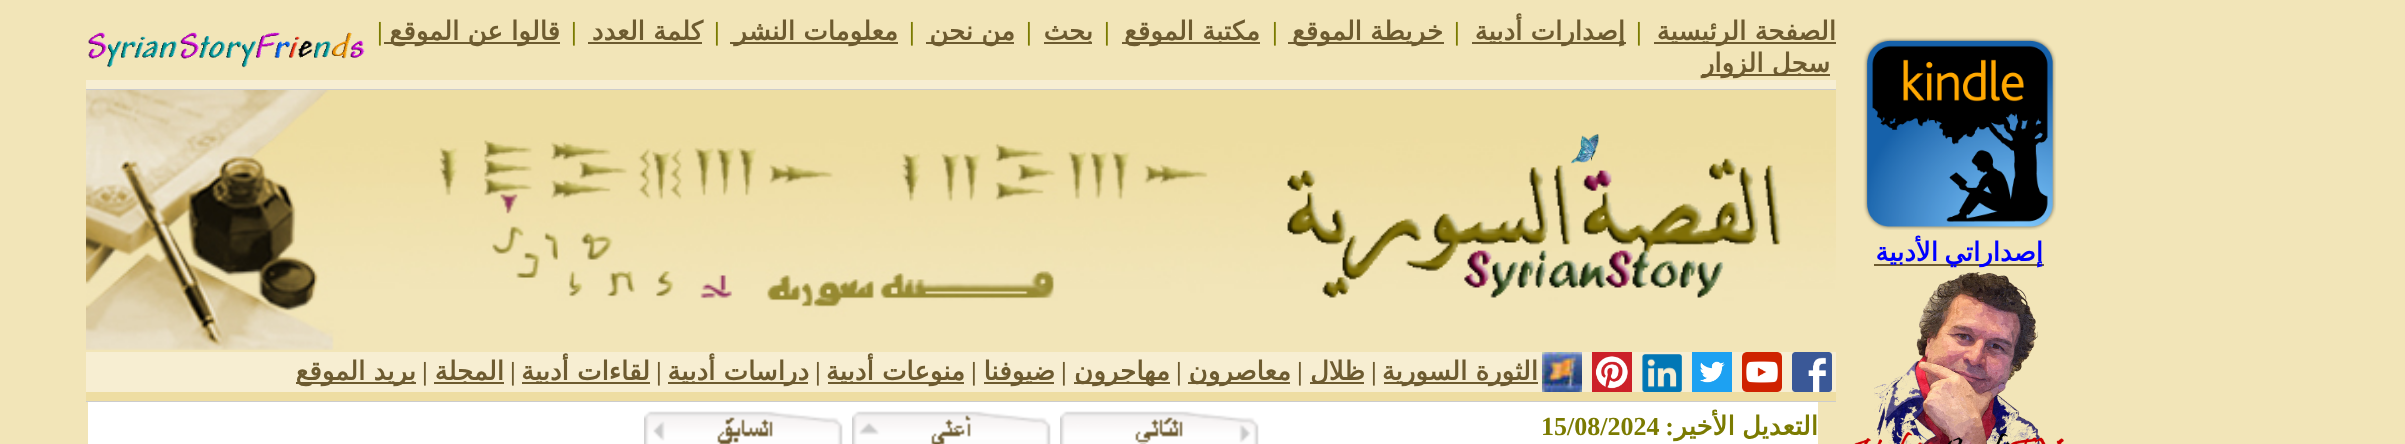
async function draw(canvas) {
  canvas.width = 2405;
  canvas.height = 444;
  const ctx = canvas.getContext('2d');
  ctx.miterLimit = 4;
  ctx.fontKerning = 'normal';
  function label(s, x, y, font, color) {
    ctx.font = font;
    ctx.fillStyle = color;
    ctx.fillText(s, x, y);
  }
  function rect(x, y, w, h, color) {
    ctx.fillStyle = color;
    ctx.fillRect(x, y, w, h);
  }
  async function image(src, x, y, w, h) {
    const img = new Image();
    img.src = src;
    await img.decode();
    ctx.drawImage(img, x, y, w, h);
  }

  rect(0, 0, 2405, 444, '#f2e5b8');
  rect(1654, 42, 182, 2, '#6d5b30');
  ctx.direction = 'rtl';
  label('الصفحة الرئيسية', 1836, 40, 'bold 26px DejaVu Sans', '#6d5b30');
  ctx.direction = 'ltr';
  label('|', 1636, 40, 'bold 26px Liberation Serif', '#7b7b01');
  rect(1472, 42, 154, 2, '#6d5b30');
  ctx.direction = 'rtl';
  label('إصدارات أدبية', 1625, 40, 'bold 26px DejaVu Sans', '#6d5b30');
  ctx.direction = 'ltr';
  label('|', 1454, 40, 'bold 26px Liberation Serif', '#7b7b01');
  rect(1288, 42, 156, 2, '#6d5b30');
  ctx.direction = 'rtl';
  label('خريطة الموقع', 1443, 40, 'bold 26px DejaVu Sans', '#6d5b30');
  ctx.direction = 'ltr';
  label('|', 1272, 40, 'bold 26px Liberation Serif', '#7b7b01');
  rect(1122, 42, 138, 2, '#6d5b30');
  ctx.direction = 'rtl';
  label('مكتبة الموقع', 1260, 40, 'bold 26px DejaVu Sans', '#6d5b30');
  ctx.direction = 'ltr';
  label('|', 1104, 40, 'bold 26px Liberation Serif', '#7b7b01');
  rect(1044, 42, 48, 2, '#6d5b30');
  ctx.direction = 'rtl';
  label('بحث', 1093, 40, 'bold 26px DejaVu Sans', '#6d5b30');
  ctx.direction = 'ltr';
  label('|', 1026, 40, 'bold 26px Liberation Serif', '#7b7b01');
  rect(926, 42, 88, 2, '#6d5b30');
  ctx.direction = 'rtl';
  label('من نحن', 1015, 40, 'bold 26px DejaVu Sans', '#6d5b30');
  ctx.direction = 'ltr';
  label('|', 909, 40, 'bold 26px Liberation Serif', '#7b7b01');
  rect(730, 42, 168, 2, '#6d5b30');
  ctx.direction = 'rtl';
  label('معلومات النشر', 898, 40, 'bold 26px DejaVu Sans', '#6d5b30');
  ctx.direction = 'ltr';
  label('|', 714, 40, 'bold 26px Liberation Serif', '#7b7b01');
  ctx.direction = 'rtl';
  label('كلمة العدد', 703, 40, 'bold 26px DejaVu Sans', '#6d5b30');
  rect(588, 42, 114, 2, '#6d5b30');
  ctx.direction = 'ltr';
  label('|', 571, 40, 'bold 26px Liberation Serif', '#7b7b01');
  rect(384, 42, 176, 2, '#6d5b30');
  ctx.direction = 'rtl';
  label('قالوا عن الموقع', 560, 40, 'bold 26px DejaVu Sans', '#6d5b30');
  ctx.direction = 'ltr';
  label('|', 377, 40, 'bold 26px Liberation Serif', '#7b7b01');
  rect(1702, 74, 128, 2, '#6d5b30');
  ctx.direction = 'rtl';
  label('سجل الزوار', 1830, 72, 'bold 26px DejaVu Sans', '#6d5b30');
  await image('assets/img1.png', 88, 32, 277, 36);
  rect(86, 80, 1750, 9, '#f7eed2');
  rect(86, 89, 1750, 1, '#ccc');
  await image('assets/img2.png', 1863, 37, 193, 193);
  rect(1874, 264, 170, 2, '#6d5b30');
  ctx.wordSpacing = '-2px';
  label('إصداراتي الأدبية', 2043, 261, 'bold 26px DejaVu Sans', '#00f');
  await image('assets/img3.png', 1854, 272, 210, 172);
  await image('assets/img4.png', 86, 90, 1750, 260);
  rect(86, 352, 1750, 40, '#f7eed2');
  await image('assets/img5.png', 1792, 352, 40, 40);
  await image('assets/img6.png', 1742, 352, 40, 40);
  await image('assets/img7.png', 1692, 352, 40, 40);
  await image('assets/img8.png', 1642, 354, 40, 38);
  await image('assets/img9.png', 1592, 352, 40, 40);
  await image('assets/img10.png', 1542, 352, 40, 40);
  rect(1384, 382, 154, 2, '#6d5b30');
  ctx.wordSpacing = '0px';
  label('الثورة السورية', 1538, 380, 'bold 26px DejaVu Sans', '#6d5b30');
  ctx.direction = 'ltr';
  label('|', 1371, 380, 'bold 26px Liberation Serif', '#6d5b30');
  rect(1310, 382, 54, 2, '#6d5b30');
  ctx.direction = 'rtl';
  label('ظلال', 1365, 380, 'bold 26px DejaVu Sans', '#6d5b30');
  ctx.direction = 'ltr';
  label('|', 1297, 380, 'bold 26px Liberation Serif', '#6d5b30');
  rect(1188, 382, 102, 2, '#6d5b30');
  ctx.direction = 'rtl';
  label('معاصرون', 1291, 380, 'bold 26px DejaVu Sans', '#6d5b30');
  ctx.direction = 'ltr';
  label('|', 1176, 380, 'bold 26px Liberation Serif', '#6d5b30');
  rect(1074, 382, 96, 2, '#6d5b30');
  ctx.direction = 'rtl';
  label('مهاجرون', 1170, 380, 'bold 26px DejaVu Sans', '#6d5b30');
  ctx.direction = 'ltr';
  label('|', 1061, 380, 'bold 26px Liberation Serif', '#6d5b30');
  rect(984, 382, 70, 2, '#6d5b30');
  ctx.direction = 'rtl';
  label('ضيوفنا', 1055, 380, 'bold 26px DejaVu Sans', '#6d5b30');
  ctx.direction = 'ltr';
  label('|', 971, 380, 'bold 26px Liberation Serif', '#6d5b30');
  rect(828, 382, 136, 2, '#6d5b30');
  ctx.direction = 'rtl';
  label('منوعات أدبية', 965, 380, 'bold 26px DejaVu Sans', '#6d5b30');
  ctx.direction = 'ltr';
  label('|', 815, 380, 'bold 26px Liberation Serif', '#6d5b30');
  rect(668, 382, 140, 2, '#6d5b30');
  ctx.direction = 'rtl';
  label('دراسات أدبية', 809, 380, 'bold 26px DejaVu Sans', '#6d5b30');
  ctx.direction = 'ltr';
  label('|', 656, 380, 'bold 26px Liberation Serif', '#6d5b30');
  rect(522, 382, 128, 2, '#6d5b30');
  ctx.direction = 'rtl';
  label('لقاءات أدبية', 650, 380, 'bold 26px DejaVu Sans', '#6d5b30');
  ctx.direction = 'ltr';
  label('|', 510, 380, 'bold 26px Liberation Serif', '#6d5b30');
  rect(434, 382, 70, 2, '#6d5b30');
  ctx.direction = 'rtl';
  label('المجلة', 504, 380, 'bold 26px DejaVu Sans', '#6d5b30');
  ctx.direction = 'ltr';
  label('|', 422, 380, 'bold 26px Liberation Serif', '#6d5b30');
  rect(296, 382, 120, 2, '#6d5b30');
  ctx.direction = 'rtl';
  label('بريد الموقع', 416, 380, 'bold 26px DejaVu Sans', '#6d5b30');
  rect(86, 392, 1750, 9, '#eedda2');
  rect(86, 401, 1750, 1, '#ccc');
  await image('assets/img11.png', 1287, 157, 495, 141);
  await image('assets/img12.png', 1571, 134, 28, 30);
  rect(88, 402, 1730, 42, '#fff');
  ctx.wordSpacing = '-1px';
  label('التعديل الأخير', 1818, 435, 'bold 26px DejaVu Sans', '#7b7b01');
  ctx.wordSpacing = '0px';
  label(':', 1674, 435, 'bold 26px Liberation Serif', '#7b7b01');
  ctx.direction = 'ltr';
  label('15/08/2024', 1541, 435, 'bold 26px Liberation Serif', '#7b7b01');
  await image('assets/img13.png', 1060, 411, 199, 33);
  await image('assets/img14.png', 852, 411, 199, 33);
  await image('assets/img15.png', 644, 411, 199, 33);
}

draw(document.querySelector('canvas'));
